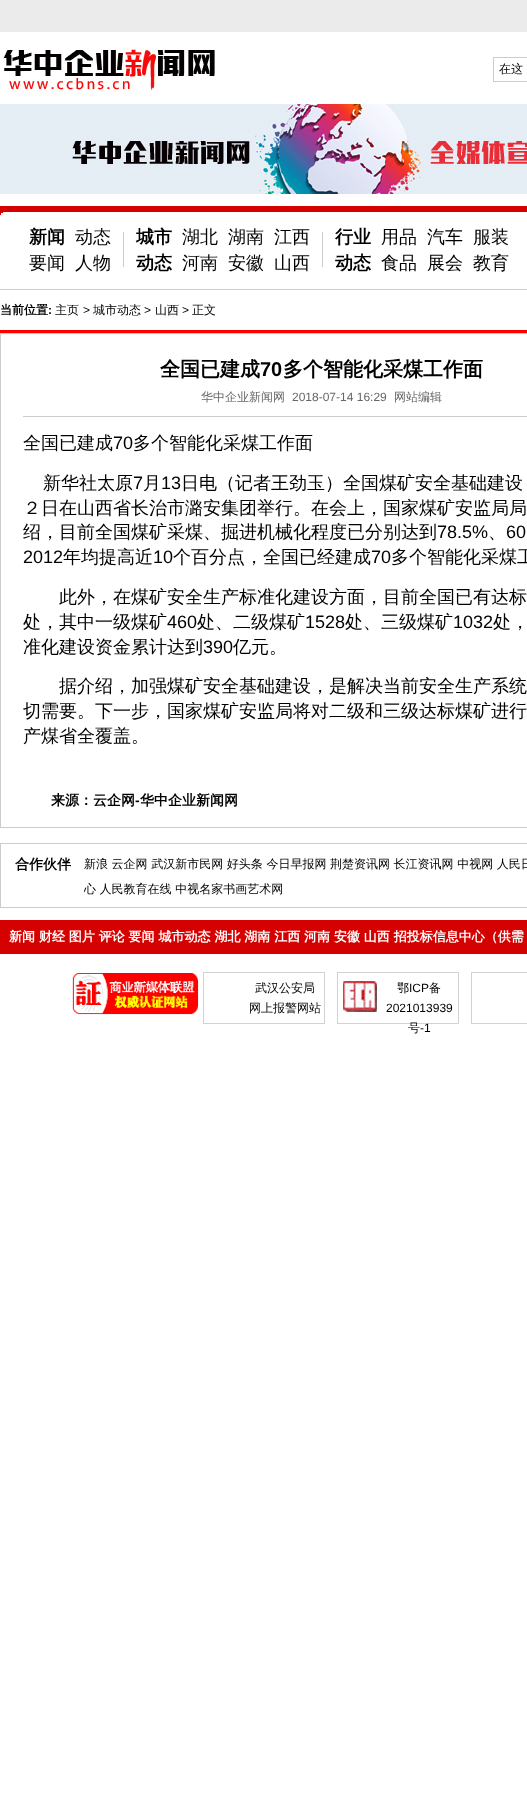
async function draw(canvas) {
  canvas.width = 527;
  canvas.height = 1812;
  const ctx = canvas.getContext('2d');
  ctx.miterLimit = 4;
  ctx.fontKerning = 'normal';
  function label(s, x, y, font, color) {
    ctx.font = font;
    ctx.fillStyle = color;
    ctx.fillText(s, x, y);
  }
  function rect(x, y, w, h, color) {
    ctx.fillStyle = color;
    ctx.fillRect(x, y, w, h);
  }
  async function image(src, x, y, w, h) {
    const img = new Image();
    img.src = src;
    await img.decode();
    ctx.drawImage(img, x, y, w, h);
  }

  rect(0, 0, 527, 1812, '#fff');
  rect(0, 0, 527, 32, '#ebebeb');
  await image('assets/img1.png', 3, 49, 212, 41);
  ctx.strokeStyle = '#ccc';
  ctx.strokeRect(493.5, 57.5, 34, 24);
  label('在这', 499, 73, '500 12px WenQuanYi Zen Hei', '#000');
  await image('assets/img2.png', 0, 104, 527, 90);
  await image('assets/img3.png', 0, 206, 527, 9);
  rect(0, 289, 527, 1, '#ccc');
  label('新闻', 29, 243, 'bold 18px WenQuanYi Zen Hei', '#000');
  label('要闻', 29, 269, '500 18px WenQuanYi Zen Hei', '#000');
  label('动态', 75, 243, '500 18px WenQuanYi Zen Hei', '#000');
  label('人物', 75, 269, '500 18px WenQuanYi Zen Hei', '#000');
  rect(123, 232, 1, 35, '#ccc');
  label('城市', 136, 243, 'bold 18px WenQuanYi Zen Hei', '#000');
  label('动态', 136, 269, 'bold 18px WenQuanYi Zen Hei', '#000');
  label('湖北', 182, 243, '500 18px WenQuanYi Zen Hei', '#000');
  label('湖南', 228, 243, '500 18px WenQuanYi Zen Hei', '#000');
  label('江西', 274, 243, '500 18px WenQuanYi Zen Hei', '#000');
  label('河南', 182, 269, '500 18px WenQuanYi Zen Hei', '#000');
  label('安徽', 228, 269, '500 18px WenQuanYi Zen Hei', '#000');
  label('山西', 274, 269, '500 18px WenQuanYi Zen Hei', '#000');
  rect(322, 232, 1, 35, '#ccc');
  label('行业', 335, 243, 'bold 18px WenQuanYi Zen Hei', '#000');
  label('动态', 335, 269, 'bold 18px WenQuanYi Zen Hei', '#000');
  label('用品', 381, 243, '500 18px WenQuanYi Zen Hei', '#000');
  label('汽车', 427, 243, '500 18px WenQuanYi Zen Hei', '#000');
  label('服装', 473, 243, '500 18px WenQuanYi Zen Hei', '#000');
  label('食品', 381, 269, '500 18px WenQuanYi Zen Hei', '#000');
  label('展会', 427, 269, '500 18px WenQuanYi Zen Hei', '#000');
  label('教育', 473, 269, '500 18px WenQuanYi Zen Hei', '#000');
  label('当前位置', 0, 314, 'bold 12px WenQuanYi Zen Hei', '#000');
  label(':', 48, 314, 'bold 12px Liberation Sans', '#000');
  label('主页', 55, 314, '500 12px WenQuanYi Zen Hei', '#000');
  label('>', 83, 314, '12px Liberation Sans', '#000');
  label('城市动态', 93, 314, '500 12px WenQuanYi Zen Hei', '#000');
  label('>', 144, 314, '12px Liberation Sans', '#000');
  label('山西', 155, 314, '500 12px WenQuanYi Zen Hei', '#000');
  label('>', 182, 314, '12px Liberation Sans', '#000');
  label('正文', 192, 314, '500 12px WenQuanYi Zen Hei', '#000');
  rect(0, 330, 527, 3, '#f00');
  ctx.strokeRect(0.5, 333.5, 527, 494);
  rect(23, 416, 504, 1, '#ccc');
  label('全国已建成', 160, 376, 'bold 20px WenQuanYi Zen Hei', '#000');
  label('70', 260, 376, 'bold 20px Liberation Sans', '#000');
  label('多个智能化采煤工作面', 283, 376, 'bold 20px WenQuanYi Zen Hei', '#000');
  label('华中企业新闻网', 201, 401, '500 12px WenQuanYi Zen Hei', '#666');
  label('2018-07-14 16:29', 292, 401, '12px Liberation Sans', '#666');
  label('网站编辑', 394, 401, '500 12px WenQuanYi Zen Hei', '#666');
  label('全国已建成', 23, 449, '500 18px WenQuanYi Zen Hei', '#000');
  label('70', 113, 449, '18px Liberation Sans', '#000');
  label('多个智能化采煤工作面', 133, 449, '500 18px WenQuanYi Zen Hei', '#000');
  label('新华社太原', 43, 489, '500 18px WenQuanYi Zen Hei', '#000');
  label('7', 133, 489, '18px Liberation Sans', '#000');
  label('月', 143, 489, '500 18px WenQuanYi Zen Hei', '#000');
  label('13', 161, 489, '18px Liberation Sans', '#000');
  label('日电（记者王劲玉）全国煤矿安全基础建设', 181, 489, '500 18px WenQuanYi Zen Hei', '#000');
  label('２日在山西省长治市潞安集团举行。在会上，国家煤矿安监局局', 23, 514, '500 18px WenQuanYi Zen Hei', '#000');
  label('绍，目前全国煤矿采煤、掘进机械化程度已分别达到', 23, 538, '500 18px WenQuanYi Zen Hei', '#000');
  label('78.5%', 437, 538, '18px Liberation Sans', '#000');
  label('、', 488, 538, '500 18px WenQuanYi Zen Hei', '#000');
  label('60', 506, 538, '18px Liberation Sans', '#000');
  label('2012', 23, 563, '18px Liberation Sans', '#000');
  label('年均提高近', 63, 563, '500 18px WenQuanYi Zen Hei', '#000');
  label('10', 153, 563, '18px Liberation Sans', '#000');
  label('个百分点，全国已经建成', 173, 563, '500 18px WenQuanYi Zen Hei', '#000');
  label('70', 371, 563, '18px Liberation Sans', '#000');
  label('多个智能化采煤工', 391, 563, '500 18px WenQuanYi Zen Hei', '#000');
  label('此外，在煤矿安全生产标准化建设方面，目前全国已有达标', 59, 603, '500 18px WenQuanYi Zen Hei', '#000');
  label('处，其中一级煤矿', 23, 628, '500 18px WenQuanYi Zen Hei', '#000');
  label('460', 167, 628, '18px Liberation Sans', '#000');
  label('处、二级煤矿', 197, 628, '500 18px WenQuanYi Zen Hei', '#000');
  label('1528', 305, 628, '18px Liberation Sans', '#000');
  label('处、三级煤矿', 345, 628, '500 18px WenQuanYi Zen Hei', '#000');
  label('1032', 453, 628, '18px Liberation Sans', '#000');
  label('处，', 493, 628, '500 18px WenQuanYi Zen Hei', '#000');
  label('准化建设资金累计达到', 23, 653, '500 18px WenQuanYi Zen Hei', '#000');
  label('390', 203, 653, '18px Liberation Sans', '#000');
  label('亿元。', 233, 653, '500 18px WenQuanYi Zen Hei', '#000');
  label('据介绍，加强煤矿安全基础建设，是解决当前安全生产系统', 59, 692, '500 18px WenQuanYi Zen Hei', '#000');
  label('切需要。下一步，国家煤矿安监局将对二级和三级达标煤矿进行', 23, 717, '500 18px WenQuanYi Zen Hei', '#000');
  label('产煤省全覆盖。', 23, 742, '500 18px WenQuanYi Zen Hei', '#000');
  label('来源：云企网', 51, 805, 'bold 14px WenQuanYi Zen Hei', '#000');
  label('-', 135, 805, 'bold 14px Liberation Sans', '#000');
  label('华中企业新闻网', 140, 805, 'bold 14px WenQuanYi Zen Hei', '#000');
  ctx.strokeRect(0.5, 843.5, 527, 64);
  label('合作伙伴', 15, 869, 'bold 14px WenQuanYi Zen Hei', '#000');
  label('新浪 云企网 武汉新市民网 好头条 今日早报网 荆楚资讯网 长江资讯网 中视网 人民日', 84, 868, '500 12px WenQuanYi Zen Hei', '#000');
  label('心 人民教育在线 中视名家书画艺术网', 84, 893, '500 12px WenQuanYi Zen Hei', '#000');
  rect(0, 920, 527, 34, '#d50000');
  label('新闻 财经 图片 评论 要闻 城市动态 湖北 湖南 江西 河南 安徽 山西 招投标信息中心（供需', 9, 941, 'bold 13px WenQuanYi Zen Hei', '#fff');
  await image('assets/img4.png', 72, 973, 127, 42);
  ctx.strokeStyle = '#d2d2d2';
  ctx.strokeRect(203.5, 972.5, 121, 51);
  label('武汉公安局', 255, 992, '500 12px WenQuanYi Zen Hei', '#000');
  label('网上报警网站', 249, 1012, '500 12px WenQuanYi Zen Hei', '#000');
  ctx.strokeRect(337.5, 972.5, 121, 51);
  await image('assets/img5.png', 343, 981, 34, 31);
  label('鄂', 397, 992, '500 12px WenQuanYi Zen Hei', '#000');
  label('ICP', 409, 992, '12px Liberation Sans', '#000');
  label('备', 429, 992, '500 12px WenQuanYi Zen Hei', '#000');
  label('2021013939', 386, 1012, '12px Liberation Sans', '#000');
  label('号', 408, 1032, '500 12px WenQuanYi Zen Hei', '#000');
  label('-1', 420, 1032, '12px Liberation Sans', '#000');
  ctx.strokeRect(471.5, 972.5, 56, 51);
}

draw(document.querySelector('canvas'));
